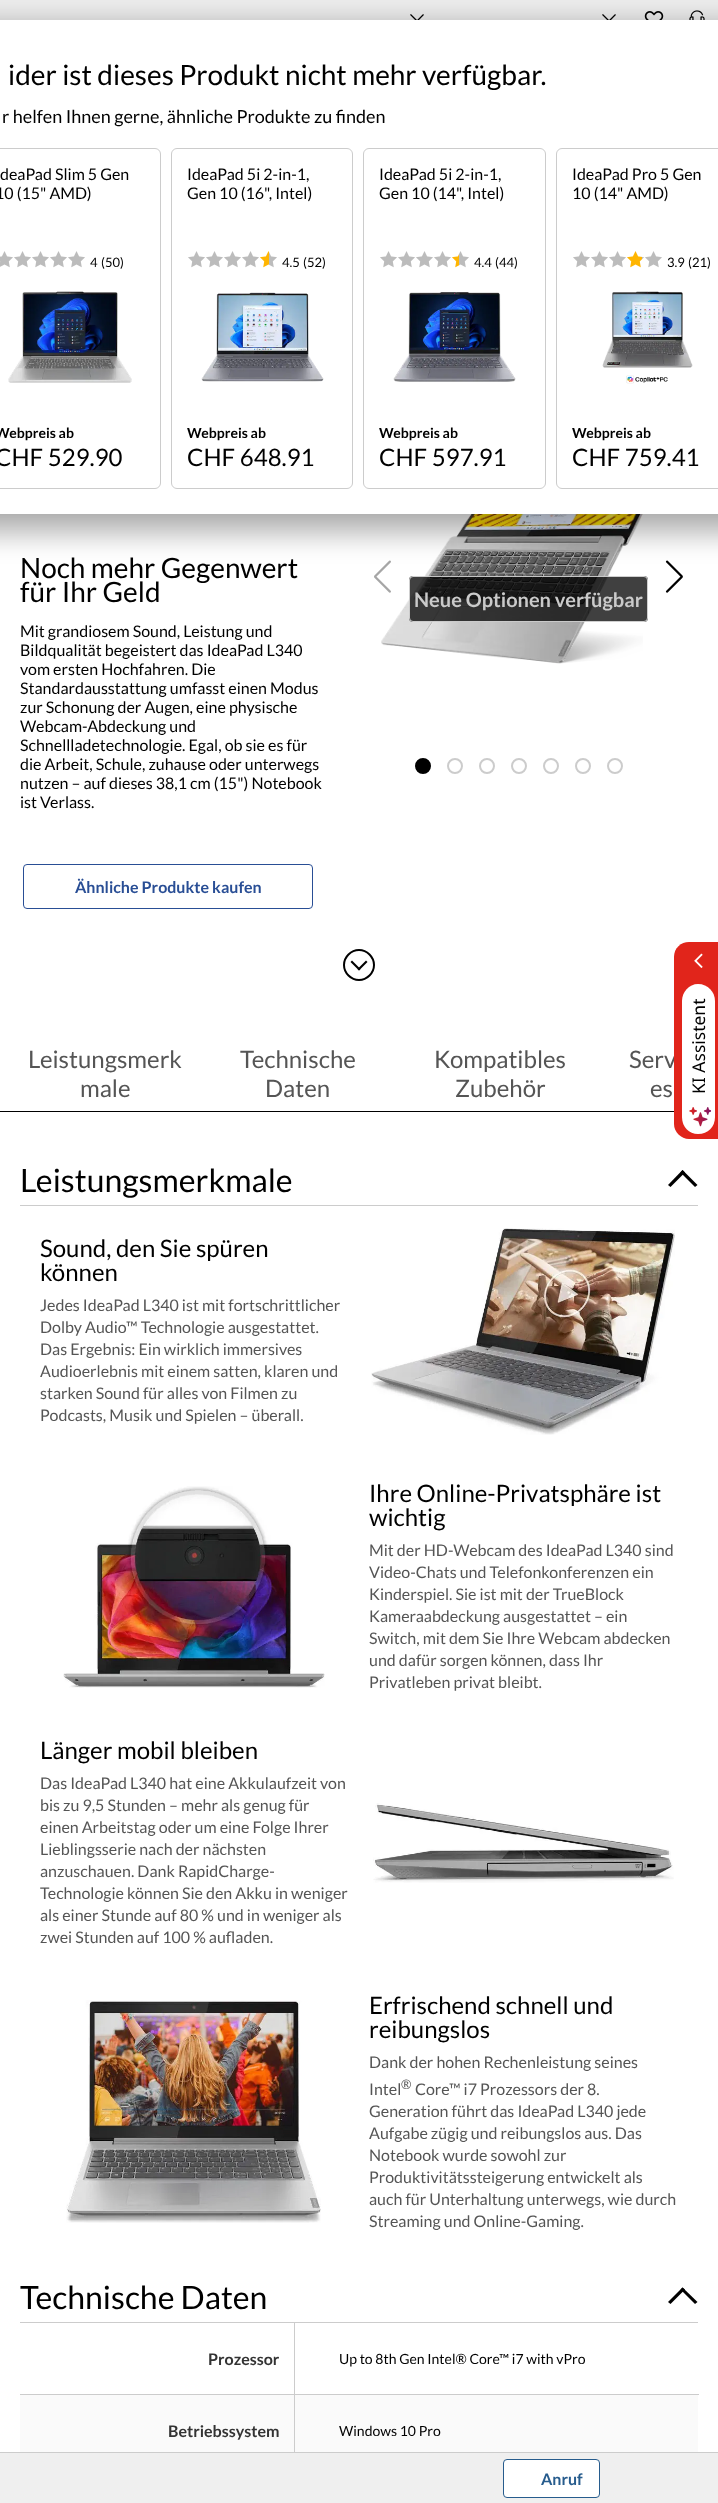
async function draw(canvas) {
  canvas.width = 718;
  canvas.height = 2503;
  const ctx = canvas.getContext('2d');
  ctx.miterLimit = 4;
  ctx.fontKerning = 'normal';
  function label(s, x, y, font, color) {
    ctx.font = font;
    ctx.fillStyle = color;
    ctx.fillText(s, x, y);
  }
  function rect(x, y, w, h, color) {
    ctx.fillStyle = color;
    ctx.fillRect(x, y, w, h);
  }
  function roundedRect(x, y, w, h, r, color) {
    ctx.fillStyle = color;
    ctx.beginPath();
    ctx.roundRect(x, y, w, h, r);
    ctx.fill();
  }
  async function image(src, x, y, w, h) {
    const img = new Image();
    img.src = src;
    await img.decode();
    ctx.drawImage(img, x, y, w, h);
  }
  let path;

  rect(0, 0, 718, 2503, '#fff');
  rect(0, 0, 718, 20, '#ededed');
  await image('assets/img1.png', 410, 14, 14, 6);
  await image('assets/img1.png', 602, 14, 14, 6);
  await image('assets/img2.png', 644, 11, 20, 9);
  await image('assets/img3.png', 689, 10, 16, 10);
  await image('assets/img13.png', 381, 514, 262, 150);
  await image('assets/img14.png', 374, 560, 17, 33);
  await image('assets/img15.png', 665, 560, 18, 33);
  ctx.fillStyle = '#00000038';
  ctx.filter = 'blur(12px)';
  ctx.beginPath();
  ctx.rect(-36, 44, 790, 494);
  ctx.fill();
  ctx.filter = 'none';
  ctx.filter = 'blur(12px)';
  ctx.beginPath();
  ctx.rect(-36, 20, 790, 494);
  ctx.fill();
  ctx.filter = 'none';
  rect(0, 20, 718, 494, '#fff');
  label('ider ist dieses Produkt nicht mehr verfügbar.', 8, 85, '28px Lato', '#000');
  label('r helfen Ihnen gerne, ähnliche Produkte zu finden', 2, 123, '18px Lato', '#000');
  ctx.beginPath();
  ctx.roundRect(-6.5, 148.5, 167, 340, 5.5);
  ctx.strokeStyle = '#ccc';
  ctx.stroke();
  label('deaPad Slim 5 Gen', 0, 180, '16px Lato', '#000');
  label('10 (15" AMD)', -5, 199, '16px Lato', '#000');
  await image('assets/img4.png', 0, 251, 13, 17);
  await image('assets/img5.png', 14, 251, 17, 17);
  await image('assets/img5.png', 32, 251, 17, 17);
  await image('assets/img5.png', 50, 251, 17, 17);
  await image('assets/img5.png', 68, 251, 17, 17);
  label('4', 90, 267, '13px Lato', '#000');
  label('(50)', 101, 267, '13px Lato', '#000');
  await image('assets/img6.png', 8, 291, 124, 92);
  label('Webpreis ab', -5, 438, 'bold 14px Lato', '#000');
  label('CHF 529.90', -5, 466, '24px Lato', '#000');
  ctx.beginPath();
  ctx.roundRect(171.5, 148.5, 181, 340, 5.5);
  ctx.stroke();
  label('IdeaPad 5i 2-in-1,', 187, 180, '16px Lato', '#000');
  label('Gen 10 (16", Intel)', 187, 199, '16px Lato', '#000');
  await image('assets/img5.png', 188, 251, 17, 17);
  await image('assets/img5.png', 206, 251, 17, 17);
  await image('assets/img5.png', 224, 251, 17, 17);
  await image('assets/img5.png', 242, 251, 17, 17);
  await image('assets/img7.png', 260, 251, 17, 17);
  label('4.5', 282, 267, '13px Lato', '#000');
  label('(52)', 303, 267, '13px Lato', '#000');
  await image('assets/img8.png', 201, 292, 123, 90);
  label('Webpreis ab', 187, 438, 'bold 14px Lato', '#000');
  label('CHF 648.91', 187, 466, '24px Lato', '#000');
  ctx.beginPath();
  ctx.roundRect(363.5, 148.5, 182, 340, 5.5);
  ctx.stroke();
  label('IdeaPad 5i 2-in-1,', 379, 180, '16px Lato', '#000');
  label('Gen 10 (14", Intel)', 379, 199, '16px Lato', '#000');
  await image('assets/img5.png', 380, 251, 17, 17);
  await image('assets/img5.png', 398, 251, 17, 17);
  await image('assets/img5.png', 416, 251, 17, 17);
  await image('assets/img5.png', 434, 251, 17, 17);
  await image('assets/img9.png', 452, 251, 17, 17);
  label('4.4', 474, 267, '13px Lato', '#000');
  label('(44)', 495, 267, '13px Lato', '#000');
  await image('assets/img10.png', 393, 292, 123, 90);
  label('Webpreis ab', 379, 438, 'bold 14px Lato', '#000');
  label('CHF 597.91', 379, 466, '24px Lato', '#000');
  ctx.beginPath();
  ctx.roundRect(556.5, 148.5, 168, 340, 5.5);
  ctx.stroke();
  label('IdeaPad Pro 5 Gen', 572, 180, '16px Lato', '#000');
  label('10 (14" AMD)', 572, 199, '16px Lato', '#000');
  await image('assets/img5.png', 573, 251, 17, 17);
  await image('assets/img5.png', 591, 251, 17, 17);
  await image('assets/img5.png', 609, 251, 17, 17);
  await image('assets/img11.png', 627, 251, 17, 17);
  await image('assets/img5.png', 645, 251, 17, 17);
  label('3.9', 667, 267, '13px Lato', '#000');
  label('(21)', 688, 267, '13px Lato', '#000');
  await image('assets/img12.png', 602, 291, 91, 93);
  label('Webpreis ab', 572, 438, 'bold 14px Lato', '#000');
  label('CHF 759.41', 572, 466, '24px Lato', '#000');
  label('Noch mehr Gegenwert', 20, 578, '28px Lato', '#000');
  label('für Ihr Geld', 20, 602, '28px Lato', '#000');
  label('Mit grandiosem Sound, Leistung und', 20, 637, '16px Lato', '#000');
  label('Bildqualität begeistert das IdeaPad L340', 20, 656, '16px Lato', '#000');
  label('vom ersten Hochfahren. Die', 20, 675, '16px Lato', '#000');
  label('Standardausstattung umfasst einen Modus', 20, 694, '16px Lato', '#000');
  label('zur Schonung der Augen, eine physische', 20, 713, '16px Lato', '#000');
  label('Webcam-Abdeckung und', 20, 732, '16px Lato', '#000');
  label('Schnellladetechnologie. Egal, ob sie es für', 20, 751, '16px Lato', '#000');
  label('die Arbeit, Schule, zuhause oder unterwegs', 20, 770, '16px Lato', '#000');
  label('nutzen – auf dieses 38,1 cm (15") Notebook', 20, 789, '16px Lato', '#000');
  label('ist Verlass.', 20, 808, '16px Lato', '#000');
  ctx.beginPath();
  ctx.roundRect(23.5, 864.5, 289, 44, 3.5);
  ctx.strokeStyle = '#294e95';
  ctx.stroke();
  label('Ähnliche Produkte kaufen', 75, 893, 'bold 16px Lato', '#294e95');
  ctx.fillStyle = '#000';
  ctx.beginPath();
  ctx.arc(423, 766, 7, 0, 2 * Math.PI);
  ctx.fill();
  ctx.strokeStyle = '#000';
  ctx.lineWidth = 2;
  ctx.stroke();
  ctx.beginPath();
  ctx.arc(455, 766, 7, 0, 2 * Math.PI);
  ctx.strokeStyle = '#ccc';
  ctx.stroke();
  ctx.beginPath();
  ctx.arc(487, 766, 7, 0, 2 * Math.PI);
  ctx.stroke();
  ctx.beginPath();
  ctx.arc(519, 766, 7, 0, 2 * Math.PI);
  ctx.stroke();
  ctx.beginPath();
  ctx.arc(551, 766, 7, 0, 2 * Math.PI);
  ctx.stroke();
  ctx.beginPath();
  ctx.arc(583, 766, 7, 0, 2 * Math.PI);
  ctx.stroke();
  ctx.beginPath();
  ctx.arc(615, 766, 7, 0, 2 * Math.PI);
  ctx.stroke();
  roundedRect(409, 576, 239, 46, 4, '#000000bf');
  ctx.beginPath();
  ctx.roundRect(409.5, 576.5, 238, 45, 3.5);
  ctx.strokeStyle = '#ffffffbf';
  ctx.lineWidth = 1;
  ctx.stroke();
  label('Neue Optionen verfügbar', 414, 607, 'bold 20px Lato', '#cacaca');
  path = new Path2D('M369.5 954.5C375.5 960.5 375.5 969.5 369.5 975.5C363.5 981.5 354.5 981.5 348.5 975.5C342.5 969.5 342.5 960.5 348.5 954.5C354.5 948.5 363.5 948.5 369.5 954.5Z');
  ctx.strokeStyle = '#000';
  ctx.lineWidth = 2;
  ctx.stroke(path);
  ctx.fillStyle = '#000';
  path = new Path2D('M366 960.5L367.5 962L359 970.5L357.5 969Z');
  ctx.fill(path);
  path = new Path2D('M352 960.5L360.5 969L359 970.5L350.5 962Z');
  ctx.fill(path);
  rect(0, 1111, 674, 1, '#000');
  label('Leistungsmerk', 28, 1068, '24px Lato', '#555');
  label('male', 80, 1097, '24px Lato', '#555');
  label('Technische', 240, 1068, '24px Lato', '#555');
  label('Daten', 265, 1097, '24px Lato', '#555');
  label('Kompatibles', 434, 1068, '24px Lato', '#555');
  label('Zubehör', 455, 1097, '24px Lato', '#555');
  label('Serv', 629, 1068, '24px Lato', '#555');
  label('es', 650, 1097, '24px Lato', '#555');
  rect(20, 1205, 678, 1, '#ccc');
  label('Leistungsmerkmale', 20, 1192, '32px Lato', '#000');
  path = new Path2D('M670.5 1187L668 1185L682.5 1170L685 1172.5Z');
  ctx.fill(path);
  path = new Path2D('M695 1187L680.5 1172.5L682.5 1170L697.5 1185Z');
  ctx.fill(path);
  label('Sound, den Sie spüren', 40, 1257, '24px Lato', '#000');
  label('können', 40, 1281, '24px Lato', '#000');
  label('Jedes IdeaPad L340 ist mit fortschrittlicher', 40, 1311, '16px Lato', '#555');
  label('Dolby Audio™ Technologie ausgestattet.', 40, 1333, '16px Lato', '#555');
  label('Das Ergebnis: Ein wirklich immersives', 40, 1355, '16px Lato', '#555');
  label('Audioerlebnis mit einem satten, klaren und', 40, 1377, '16px Lato', '#555');
  label('starken Sound für alles von Filmen zu', 40, 1399, '16px Lato', '#555');
  label('Podcasts, Musik und Spielen – überall.', 40, 1421, '16px Lato', '#555');
  await image('assets/img16.png', 371, 1228, 304, 207);
  await image('assets/img17.png', 63, 1486, 262, 202);
  label('Ihre Online-Privatsphäre ist', 369, 1502, '24px Lato', '#000');
  label('wichtig', 369, 1526, '24px Lato', '#000');
  label('Mit der HD-Webcam des IdeaPad L340 sind', 369, 1556, '16px Lato', '#555');
  label('Video-Chats und Telefonkonferenzen ein', 369, 1578, '16px Lato', '#555');
  label('Kinderspiel. Sie ist mit der TrueBlock', 369, 1600, '16px Lato', '#555');
  label('Kameraabdeckung ausgestattet – ein', 369, 1622, '16px Lato', '#555');
  label('Switch, mit dem Sie Ihre Webcam abdecken', 369, 1644, '16px Lato', '#555');
  label('und dafür sorgen können, dass Ihr', 369, 1666, '16px Lato', '#555');
  label('Privatleben privat bleibt.', 369, 1688, '16px Lato', '#555');
  label('Länger mobil bleiben', 40, 1759, '24px Lato', '#000');
  label('Das IdeaPad L340 hat eine Akkulaufzeit von', 40, 1789, '16px Lato', '#555');
  label('bis zu 9,5 Stunden – mehr als genug für', 40, 1811, '16px Lato', '#555');
  label('einen Arbeitstag oder um eine Folge Ihrer', 40, 1833, '16px Lato', '#555');
  label('Lieblingsserie nach der nächsten', 40, 1855, '16px Lato', '#555');
  label('anzuschauen. Dank RapidCharge-', 40, 1877, '16px Lato', '#555');
  label('Technologie können Sie den Akku in weniger', 40, 1899, '16px Lato', '#555');
  label('als einer Stunde auf 80 % und in weniger als', 40, 1921, '16px Lato', '#555');
  label('zwei Stunden auf 100 % aufladen.', 40, 1943, '16px Lato', '#555');
  await image('assets/img18.png', 373, 1803, 301, 80);
  await image('assets/img19.png', 66, 2000, 255, 223);
  label('Erfrischend schnell und', 369, 2014, '24px Lato', '#000');
  label('reibungslos', 369, 2038, '24px Lato', '#000');
  label('Dank der hohen Rechenleistung seines', 369, 2068, '16px Lato', '#555');
  label('Intel', 369, 2095, '16px Lato', '#555');
  label('®', 401, 2089, '13px Lato', '#555');
  label('Core™ i7 Prozessors der 8.', 415, 2095, '16px Lato', '#555');
  label('Generation führt das IdeaPad L340 jede', 369, 2117, '16px Lato', '#555');
  label('Aufgabe zügig und reibungslos aus. Das', 369, 2139, '16px Lato', '#555');
  label('Notebook wurde sowohl zur', 369, 2161, '16px Lato', '#555');
  label('Produktivitätssteigerung entwickelt als', 369, 2183, '16px Lato', '#555');
  label('auch für Unterhaltung unterwegs, wie durch', 369, 2205, '16px Lato', '#555');
  label('Streaming und Online-Gaming.', 369, 2227, '16px Lato', '#555');
  rect(20, 2322, 678, 1, '#ccc');
  label('Technische Daten', 20, 2309, '32px Lato', '#000');
  path = new Path2D('M670.5 2304L668 2302L682.5 2287.5L685 2289.5Z');
  ctx.fill(path);
  path = new Path2D('M695 2304L680.5 2289.5L682.5 2287.5L697.5 2302Z');
  ctx.fill(path);
  rect(20, 2395, 678, 57, '#fafafa');
  rect(294, 2394, 1, 58, '#ccc');
  rect(294, 2394, 405, 1, '#ccc');
  rect(294, 2322, 1, 73, '#ccc');
  rect(20, 2394, 275, 1, '#ccc');
  label('Prozessor', 208, 2365, 'bold 16px Lato', '#333');
  label('Up to 8th Gen Intel® Core™ i7 with vPro', 339, 2364, '14px Lato', '#000');
  label('Betriebssystem', 168, 2437, 'bold 16px Lato', '#333');
  label('Windows 10 Pro', 339, 2436, '14px Lato', '#000');
  ctx.fillStyle = '#e1251b';
  path = new Path2D('M674 1124V957C674 948 681 942 689 942H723V1139H689C681 1139 674 1132 674 1124Z');
  ctx.fill(path);
  await image('assets/img20.png', 694, 953, 9, 15);
  ctx.fillStyle = '#fff';
  path = new Path2D('M682 1117V1001C682 992 689 984 698 984C708 984 715 992 715 1001V1117C715 1127 708 1134 698 1134C689 1134 682 1127 682 1117Z');
  ctx.fill(path);
  ctx.font = '17.5px Noto Sans';
  ctx.fillStyle = '#000';
  ctx.save();
  ctx.translate(705, 1094);
  ctx.rotate(-90 * Math.PI / 180);
  ctx.fillText('KI Assistent', 0, 0);
  ctx.restore();
  await image('assets/img21.png', 689, 1107, 22, 20);
  rect(0, 2453, 718, 50, '#efefef');
  rect(0, 2452, 718, 1, '#ccc');
  ctx.fillStyle = '#fff';
  ctx.beginPath();
  ctx.roundRect(503.5, 2459.5, 96, 38, 3.5);
  ctx.fill();
  ctx.strokeStyle = '#275c8d';
  ctx.lineWidth = 1;
  ctx.stroke();
  label('Anruf', 541, 2485, 'bold 16px Lato', '#275c8d');
}

draw(document.querySelector('canvas'));
